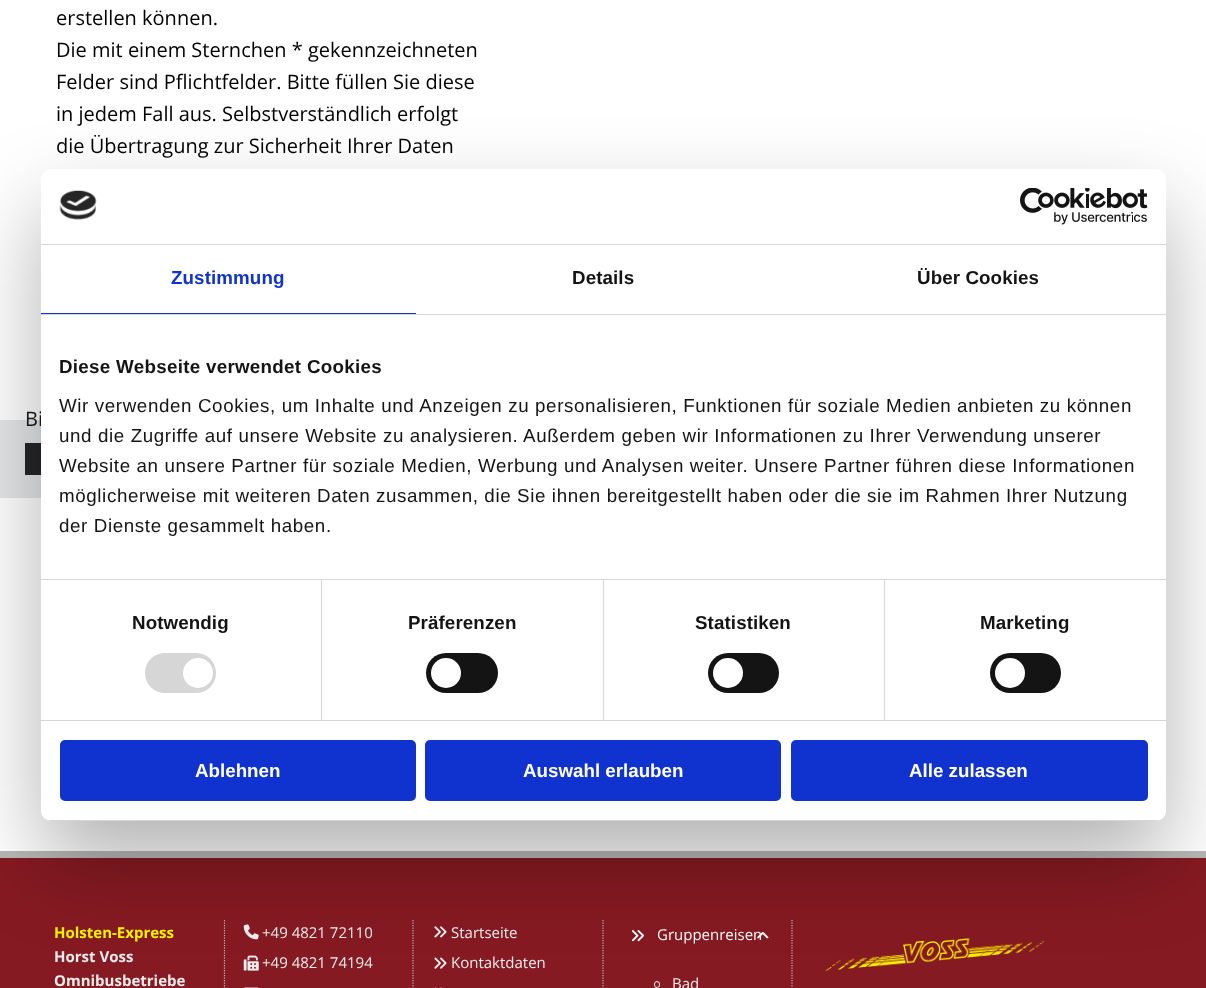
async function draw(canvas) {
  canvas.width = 1206;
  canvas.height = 988;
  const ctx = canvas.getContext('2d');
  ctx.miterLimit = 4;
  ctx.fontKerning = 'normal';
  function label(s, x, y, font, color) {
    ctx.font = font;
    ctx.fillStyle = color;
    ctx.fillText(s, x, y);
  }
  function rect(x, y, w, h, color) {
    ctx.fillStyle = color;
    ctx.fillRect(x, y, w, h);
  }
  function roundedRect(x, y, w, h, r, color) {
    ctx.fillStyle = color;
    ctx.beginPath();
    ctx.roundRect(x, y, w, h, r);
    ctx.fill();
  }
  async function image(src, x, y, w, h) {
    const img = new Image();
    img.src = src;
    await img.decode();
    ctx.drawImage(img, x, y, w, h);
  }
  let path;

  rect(0, 0, 1206, 988, '#fff');
  label('erstellen können.', 56, 25, '20px Open Sans', '#000');
  label('Die mit einem Sternchen * gekennzeichneten', 56, 57, '20px Open Sans', '#000');
  label('Felder sind Pflichtfelder. Bitte füllen Sie diese', 56, 89, '20px Open Sans', '#000');
  label('in jedem Fall aus. Selbstverständlich erfolgt', 56, 121, '20px Open Sans', '#000');
  label('die Übertragung zur Sicherheit Ihrer Daten', 56, 153, '20px Open Sans', '#000');
  rect(0, 420, 41, 78, '#e5e6e8');
  label('Bi', 25, 426, '20px Open Sans', '#1a1a1b');
  rect(25, 443, 16, 32, '#262628');
  rect(0, 858, 1206, 130, '#861a22');
  rect(0, 851, 1206, 7, '#b8b8b8');
  path = new Path2D('M224.5 920V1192.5');
  ctx.strokeStyle = '#b8b8b8';
  ctx.lineWidth = 1.2;
  ctx.setLineDash([1.25, 1.25]);
  ctx.stroke(path);
  label('Holsten-Express', 54, 938, 'bold 15px Open Sans', '#fff601');
  label('Horst Voss', 54, 962, 'bold 15px Open Sans', '#ededed');
  label('Omnibusbetriebe', 54, 986, 'bold 15px Open Sans', '#ededed');
  path = new Path2D('M413 920V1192.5');
  ctx.stroke(path);
  await image('assets/img1.png', 243, 924, 16, 16);
  label('+49 4821 72110', 262, 938, '15px Open Sans', '#ededed');
  await image('assets/img2.png', 243, 955, 16, 16);
  label('+49 4821 74194', 262, 968, '15px Open Sans', '#ededed');
  await image('assets/img3.png', 244, 987, 15, 1);
  path = new Path2D('M603 920V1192.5');
  ctx.stroke(path);
  await image('assets/img4.png', 434, 926, 13, 12);
  label('Startseite', 451, 938, '15px Open Sans', '#ededed');
  await image('assets/img5.png', 434, 957, 13, 12);
  label('Kontaktdaten', 451, 968, '15px Open Sans', '#ededed');
  await image('assets/img6.png', 434, 987, 8, 1);
  path = new Path2D('M792 920V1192.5');
  ctx.stroke(path);
  await image('assets/img7.png', 631, 930, 13, 12);
  label('Gruppenreisen', 657, 940, '15px Open Sans', '#fff');
  await image('assets/img8.png', 757, 931, 12, 8);
  ctx.beginPath();
  ctx.roundRect(654.5, 981.5, 5, 6, 2.5);
  ctx.strokeStyle = '#ededed';
  ctx.lineWidth = 1;
  ctx.setLineDash([]);
  ctx.stroke();
  label('Bad', 672, 989, '15px Open Sans', '#ededed');
  await image('assets/img9.png', 825, 938, 220, 33);
  ctx.fillStyle = '#0000004d';
  ctx.filter = 'blur(42.5px)';
  ctx.beginPath();
  ctx.roundRect(41, 209, 1125, 652, 10);
  ctx.fill();
  ctx.filter = 'none';
  roundedRect(41, 169, 1125, 652, 10, '#fff');
  rect(41, 244, 1125, 1, '#d6d6d6');
  await image('assets/img10.png', 59, 190, 38, 30);
  await image('assets/img11.png', 1020, 188, 128, 37);
  rect(41, 314, 1125, 1, '#d6d6d6');
  rect(41, 313, 375, 1, '#1032cf');
  ctx.letterSpacing = '0.1px';
  label('Zustimmung', 171, 284, 'bold 18.75px Liberation Sans', '#1032cf');
  label('Details', 572, 284, 'bold 18.75px Liberation Sans', '#141414');
  label('Über Cookies', 917, 284, 'bold 18.75px Liberation Sans', '#141414');
  rect(41, 579, 1125, 1, '#d6d6d6');
  ctx.letterSpacing = '0.3px';
  label('Diese Webseite verwendet Cookies', 59, 373, 'bold 18.75px Liberation Sans', '#141414');
  ctx.letterSpacing = '0.62px';
  label('Wir verwenden Cookies, um Inhalte und Anzeigen zu personalisieren, Funktionen für soziale Medien anbieten zu können', 59, 412, '18.75px Liberation Sans', '#141414');
  label('und die Zugriffe auf unsere Website zu analysieren. Außerdem geben wir Informationen zu Ihrer Verwendung unserer', 59, 442, '18.75px Liberation Sans', '#141414');
  label('Website an unsere Partner für soziale Medien, Werbung und Analysen weiter. Unsere Partner führen diese Informationen', 59, 472, '18.75px Liberation Sans', '#141414');
  label('möglicherweise mit weiteren Daten zusammen, die Sie ihnen bereitgestellt haben oder die sie im Rahmen Ihrer Nutzung', 59, 502, '18.75px Liberation Sans', '#141414');
  label('der Dienste gesammelt haben.', 59, 532, '18.75px Liberation Sans', '#141414');
  rect(41, 720, 1125, 1, '#d6d6d6');
  rect(321, 580, 1, 140, '#d6d6d6');
  ctx.letterSpacing = '0.1px';
  label('Notwendig', 132, 629, 'bold 18.75px Liberation Sans', '#141414');
  roundedRect(145, 653, 71, 40, 20, '#d6d6d6');
  ctx.fillStyle = '#fff';
  ctx.beginPath();
  ctx.arc(198, 673, 15, 0, 2 * Math.PI);
  ctx.fill();
  rect(603, 580, 1, 140, '#d6d6d6');
  label('Präferenzen', 408, 629, 'bold 18.75px Liberation Sans', '#141414');
  roundedRect(426, 653, 72, 40, 20, '#141414');
  ctx.fillStyle = '#fff';
  ctx.beginPath();
  ctx.arc(446, 673, 15, 0, 2 * Math.PI);
  ctx.fill();
  rect(884, 580, 1, 140, '#d6d6d6');
  label('Statistiken', 695, 629, 'bold 18.75px Liberation Sans', '#141414');
  roundedRect(708, 653, 71, 40, 20, '#141414');
  ctx.fillStyle = '#fff';
  ctx.beginPath();
  ctx.arc(728, 673, 15, 0, 2 * Math.PI);
  ctx.fill();
  label('Marketing', 980, 629, 'bold 18.75px Liberation Sans', '#141414');
  roundedRect(990, 653, 71, 40, 20, '#141414');
  ctx.fillStyle = '#fff';
  ctx.beginPath();
  ctx.arc(1010, 673, 15, 0, 2 * Math.PI);
  ctx.fill();
  ctx.save();
  ctx.beginPath();
  ctx.roundRect(41, 169, 1125, 652, 10);
  ctx.clip();
  rect(41, 820, 1125, 1, '#d6d6d6');
  ctx.restore();
  ctx.fillStyle = '#1032cf';
  ctx.beginPath();
  ctx.roundRect(61.5, 741.5, 353, 58, 3.5);
  ctx.fill();
  ctx.strokeStyle = '#1032cf';
  ctx.lineWidth = 3;
  ctx.stroke();
  ctx.letterSpacing = '0px';
  label('Ablehnen', 195, 777, 'bold 18.75px Liberation Sans', '#fff');
  ctx.fillStyle = '#1032cf';
  ctx.beginPath();
  ctx.roundRect(426.5, 741.5, 353, 58, 3.5);
  ctx.fill();
  ctx.stroke();
  label('Auswahl erlauben', 523, 777, 'bold 18.75px Liberation Sans', '#fff');
  ctx.fillStyle = '#1032cf';
  ctx.beginPath();
  ctx.roundRect(792.5, 741.5, 354, 58, 3.5);
  ctx.fill();
  ctx.stroke();
  label('Alle zulassen', 909, 777, 'bold 18.75px Liberation Sans', '#fff');
}

draw(document.querySelector('canvas'));
